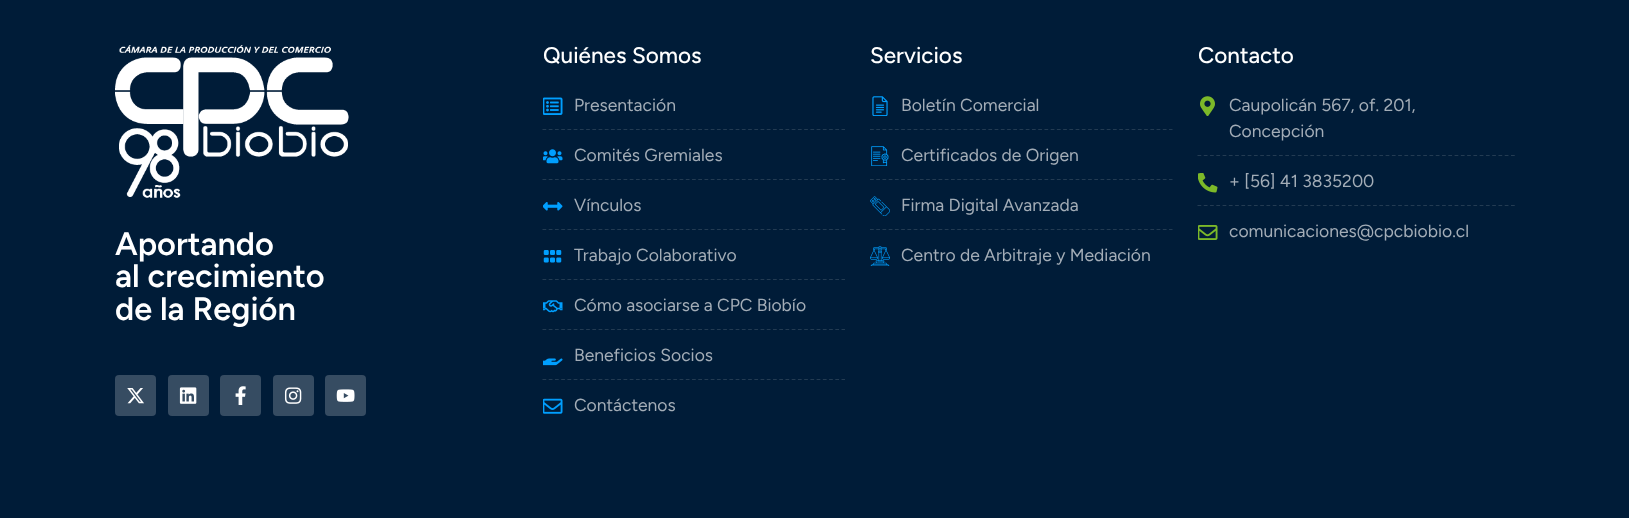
async function draw(canvas) {
  canvas.width = 1629;
  canvas.height = 518;
  const ctx = canvas.getContext('2d');
  ctx.miterLimit = 4;
  ctx.fontKerning = 'normal';
  function label(s, x, y, font, color) {
    ctx.font = font;
    ctx.fillStyle = color;
    ctx.fillText(s, x, y);
  }
  function rect(x, y, w, h, color) {
    ctx.fillStyle = color;
    ctx.fillRect(x, y, w, h);
  }
  function roundedRect(x, y, w, h, r, color) {
    ctx.fillStyle = color;
    ctx.beginPath();
    ctx.roundRect(x, y, w, h, r);
    ctx.fill();
  }
  async function image(src, x, y, w, h) {
    const img = new Image();
    img.src = src;
    await img.decode();
    ctx.drawImage(img, x, y, w, h);
  }
  let path;

  rect(0, 0, 1629, 518, '#001c38');
  label('Quiénes Somos', 543, 63, '500 22.5px Figtree', '#fff');
  await image('assets/img1.png', 543, 97, 20, 18);
  label('Presentación', 574, 111, '17.5px Figtree', '#a3adb7');
  path = new Path2D('M542.5 129.5H845');
  ctx.strokeStyle = '#233b52';
  ctx.lineWidth = 1.2;
  ctx.setLineDash([3.75, 2.48]);
  ctx.stroke(path);
  await image('assets/img2.png', 543, 149, 20, 15);
  label('Comités Gremiales', 574, 161, '17.5px Figtree', '#a3adb7');
  path = new Path2D('M542.5 179.5H845');
  ctx.stroke(path);
  await image('assets/img3.png', 543, 202, 20, 9);
  label('Vínculos', 574, 211, '17.5px Figtree', '#a3adb7');
  path = new Path2D('M542.5 229.5H845');
  ctx.stroke(path);
  await image('assets/img4.png', 543, 250, 19, 13);
  label('Trabajo Colaborativo', 574, 261, '17.5px Figtree', '#a3adb7');
  path = new Path2D('M542.5 279.5H845');
  ctx.stroke(path);
  await image('assets/img5.png', 543, 300, 20, 13);
  label('Cómo asociarse a CPC Biobío', 574, 311, '17.5px Figtree', '#a3adb7');
  path = new Path2D('M542.5 329.5H845');
  ctx.stroke(path);
  await image('assets/img6.png', 543, 358, 20, 8);
  label('Beneficios Socios', 574, 361, '17.5px Figtree', '#a3adb7');
  path = new Path2D('M542.5 379.5H845');
  ctx.stroke(path);
  await image('assets/img7.png', 543, 398, 20, 16);
  label('Contáctenos', 574, 411, '17.5px Figtree', '#a3adb7');
  label('Servicios', 870, 63, '500 22.5px Figtree', '#fff');
  await image('assets/img8.png', 872, 96, 16, 20);
  label('Boletín Comercial', 901, 111, '17.5px Figtree', '#a3adb7');
  path = new Path2D('M870 129.5H1172.5');
  ctx.stroke(path);
  await image('assets/img9.png', 871, 146, 18, 20);
  label('Certificados de Origen', 901, 161, '17.5px Figtree', '#a3adb7');
  path = new Path2D('M870 179.5H1172.5');
  ctx.stroke(path);
  await image('assets/img10.png', 870, 196, 20, 20);
  label('Firma Digital Avanzada', 901, 211, '17.5px Figtree', '#a3adb7');
  path = new Path2D('M870 229.5H1172.5');
  ctx.stroke(path);
  await image('assets/img11.png', 870, 246, 20, 20);
  label('Centro de Arbitraje y Mediación', 901, 261, '17.5px Figtree', '#a3adb7');
  label('Contacto', 1198, 63, '500 22.5px Figtree', '#fff');
  await image('assets/img12.png', 1200, 96, 15, 20);
  label('Caupolicán 567, of. 201,', 1229, 111, '17.5px Figtree', '#a3adb7');
  label('Concepción', 1229, 137, '17.5px Figtree', '#a3adb7');
  path = new Path2D('M1197.5 155.5H1515');
  ctx.setLineDash([3.75, 2.52]);
  ctx.stroke(path);
  await image('assets/img13.png', 1198, 173, 20, 20);
  label('+ [56] 41 3835200', 1229, 187, '17.5px Figtree', '#a3adb7');
  path = new Path2D('M1197.5 205.5H1515');
  ctx.stroke(path);
  await image('assets/img14.png', 1198, 225, 20, 15);
  label('comunicaciones@cpcbiobio.cl', 1229, 237, '17.5px Figtree', '#a3adb7');
  await image('assets/img15.png', 115, 45, 234, 153);
  label('Aportando', 115, 255, '600 32.5px Figtree', '#fff');
  label('al crecimiento', 115, 287, '600 32.5px Figtree', '#fff');
  label('de la Región', 115, 320, '600 32.5px Figtree', '#fff');
  roundedRect(115, 375, 41, 41, 4, '#364c62');
  await image('assets/img16.png', 127, 388, 17, 16);
  roundedRect(168, 375, 41, 41, 4, '#364c62');
  await image('assets/img17.png', 179, 387, 18, 17);
  roundedRect(220, 375, 41, 41, 4, '#364c62');
  await image('assets/img18.png', 235, 386, 11, 19);
  roundedRect(273, 375, 41, 41, 4, '#364c62');
  await image('assets/img19.png', 284, 387, 18, 17);
  roundedRect(325, 375, 41, 41, 4, '#364c62');
  await image('assets/img20.png', 336, 389, 19, 13);
}

draw(document.querySelector('canvas'));
